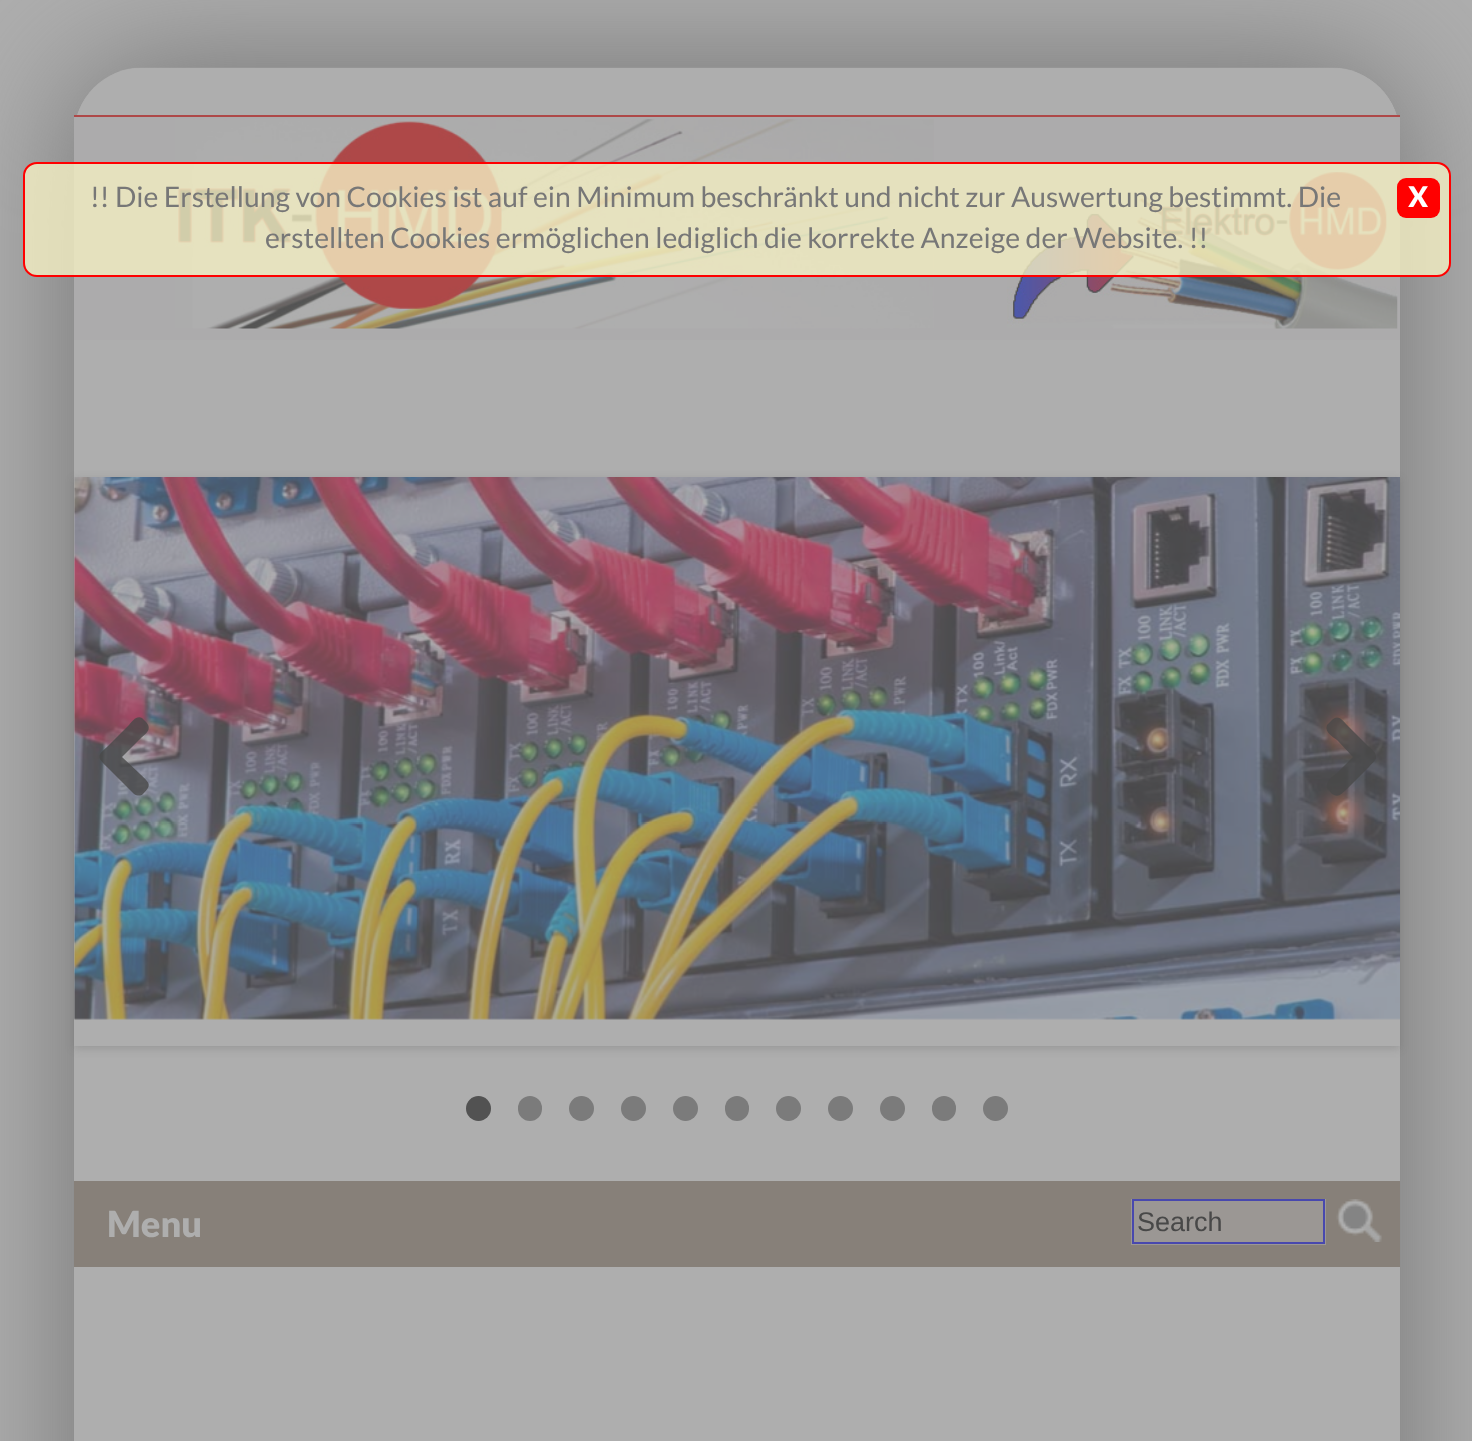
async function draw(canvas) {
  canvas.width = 1472;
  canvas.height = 1441;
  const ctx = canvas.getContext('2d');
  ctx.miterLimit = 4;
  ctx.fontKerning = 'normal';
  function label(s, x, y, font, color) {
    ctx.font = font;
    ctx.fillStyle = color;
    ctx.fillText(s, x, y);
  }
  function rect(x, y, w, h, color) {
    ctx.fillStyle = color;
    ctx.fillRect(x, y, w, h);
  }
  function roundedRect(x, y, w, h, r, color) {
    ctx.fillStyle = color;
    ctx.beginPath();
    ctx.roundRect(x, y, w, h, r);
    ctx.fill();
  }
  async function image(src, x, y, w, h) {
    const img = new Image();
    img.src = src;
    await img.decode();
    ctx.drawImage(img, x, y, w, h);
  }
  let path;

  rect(0, 0, 1472, 1441, '#aeaeae');
  ctx.save();
  path = new Path2D('M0 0H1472V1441H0ZM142 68H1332C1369.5 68 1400 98.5 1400 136V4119C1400 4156.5 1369.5 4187 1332 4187H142C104.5 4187 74 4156.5 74 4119V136C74 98.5 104.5 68 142 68Z');
  ctx.clip(path, 'evenodd');
  ctx.fillStyle = '#717171';
  ctx.filter = 'blur(67.5px)';
  ctx.beginPath();
  ctx.roundRect(74, 68, 1326, 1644, 68);
  ctx.fill();
  ctx.filter = 'none';
  ctx.restore();
  await image('assets/img1.png', 74, 67, 1326, 1374);
  ctx.beginPath();
  ctx.roundRect(74, 68, 1326, 405, [68, 68, 0, 0]);
  ctx.fill();
  rect(74, 117, 1326, 223, '#acabac');
  await image('assets/img2.png', 175, 119, 759, 210);
  await image('assets/img3.png', 1007, 168, 391, 161);
  ctx.fillStyle = '#f4efc3cc';
  ctx.beginPath();
  ctx.roundRect(24, 163, 1426, 113, 13);
  ctx.fill();
  ctx.strokeStyle = '#f00';
  ctx.lineWidth = 2;
  ctx.stroke();
  label('!! Die Erstellung von Cookies ist auf ein Minimum beschränkt und nicht zur Auswertung bestimmt. Die', 90, 207, '28.35px Lato', '#777');
  roundedRect(1397, 178, 43, 40, 9, '#f00');
  label('X', 1408, 207, '900 28.35px Lato', '#fff');
  label('erstellten Cookies ermöglichen lediglich die korrekte Anzeige der Website. !!', 265, 248, '28.35px Lato', '#777');
  rect(74, 115, 1326, 2, '#ae4848');
  ctx.fillStyle = '#48484833';
  ctx.filter = 'blur(4.5px)';
  ctx.beginPath();
  ctx.rect(74, 479, 1326, 570);
  ctx.fill();
  ctx.filter = 'none';
  rect(74, 477, 1326, 569, '#aeaeae');
  await image('assets/img4.png', 74, 477, 1326, 543);
  ctx.fillStyle = '#484848cc';
  path = new Path2D('M134 794L107 767C97 757 97 756 107 747L129 725C132 721 137 715 142 718L146 722C153 730 145 734 139 740L122 757L139 773C149 783 153 784 143 794C141 796 137 796 134 794Z');
  ctx.fill(path);
  path = new Path2D('M1376 757C1376 761 1371 764 1369 767L1347 789C1341 794 1338 799 1331 793C1330 791 1328 790 1327 788C1325 782 1333 776 1337 773L1353 757L1337 740C1333 737 1324 732 1327 725L1331 721C1338 714 1341 719 1347 725L1369 747C1371 749 1376 752 1376 757Z');
  ctx.fill(path);
  ctx.fillStyle = '#525252';
  ctx.beginPath();
  ctx.arc(478.5, 1108.5, 12.5, 0, 2 * Math.PI);
  ctx.fill();
  roundedRect(518, 1096, 24, 25, 12, '#7b7b7b');
  ctx.beginPath();
  ctx.arc(581.5, 1108.5, 12.5, 0, 2 * Math.PI);
  ctx.fill();
  ctx.beginPath();
  ctx.arc(633.5, 1108.5, 12.5, 0, 2 * Math.PI);
  ctx.fill();
  ctx.beginPath();
  ctx.arc(685.5, 1108.5, 12.5, 0, 2 * Math.PI);
  ctx.fill();
  roundedRect(725, 1096, 24, 25, 12, '#7b7b7b');
  ctx.beginPath();
  ctx.arc(788.5, 1108.5, 12.5, 0, 2 * Math.PI);
  ctx.fill();
  ctx.beginPath();
  ctx.arc(840.5, 1108.5, 12.5, 0, 2 * Math.PI);
  ctx.fill();
  ctx.beginPath();
  ctx.arc(892.5, 1108.5, 12.5, 0, 2 * Math.PI);
  ctx.fill();
  roundedRect(932, 1096, 24, 25, 12, '#7b7b7b');
  ctx.beginPath();
  ctx.arc(995.5, 1108.5, 12.5, 0, 2 * Math.PI);
  ctx.fill();
  rect(74, 1181, 1326, 86, '#878079');
  label('Menu', 107, 1237, '900 36px Lato', '#aeaeae');
  rect(1131, 1199, 195, 46, '#9b9794');
  ctx.strokeStyle = '#4848ae';
  ctx.strokeRect(1133, 1200, 191, 43);
  label('Search', 1137, 1231, '27px Liberation Sans', '#484848');
  await image('assets/img5.png', 1336, 1199, 46, 43);
}

draw(document.querySelector('canvas'));
